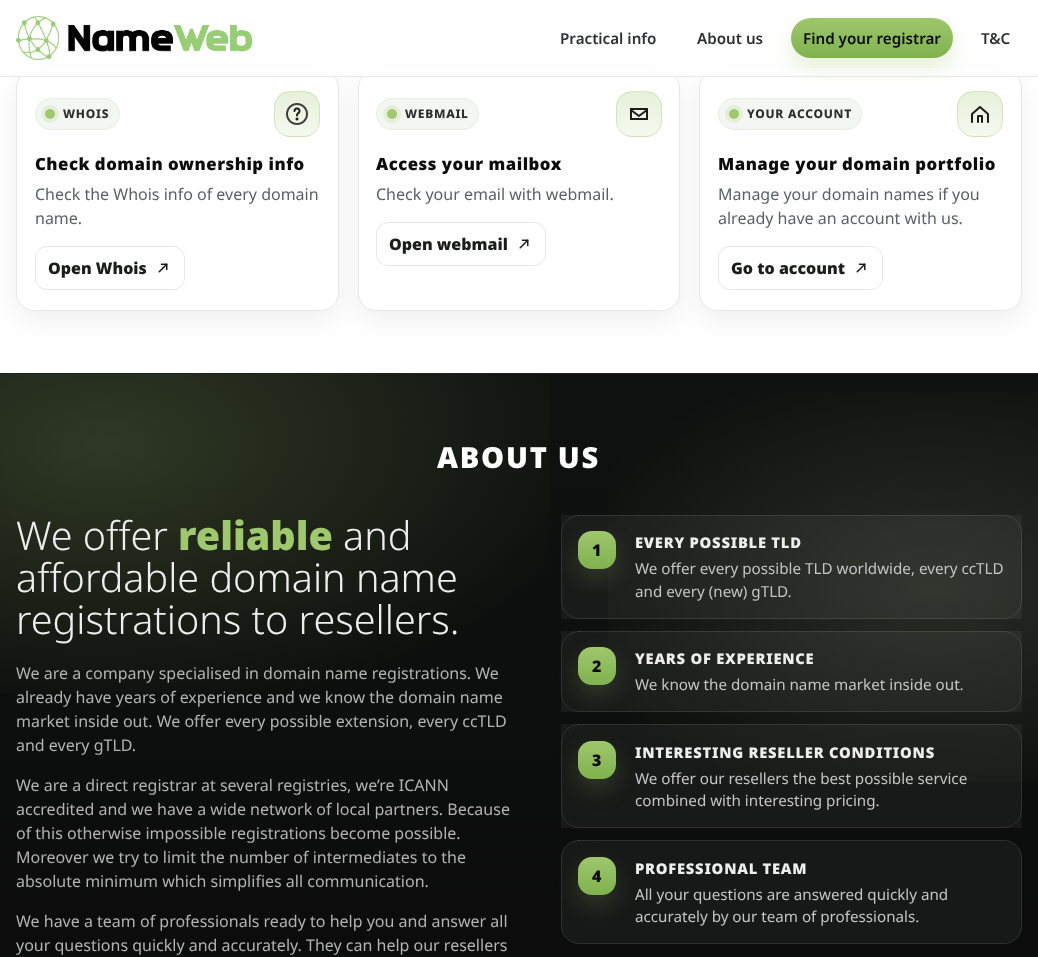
async function draw(canvas) {
  canvas.width = 1038;
  canvas.height = 957;
  const ctx = canvas.getContext('2d');
  ctx.miterLimit = 4;
  ctx.fontKerning = 'normal';
  function label(s, x, y, font, color) {
    ctx.font = font;
    ctx.fillStyle = color;
    ctx.fillText(s, x, y);
  }
  function rect(x, y, w, h, color) {
    ctx.fillStyle = color;
    ctx.fillRect(x, y, w, h);
  }
  function roundedRect(x, y, w, h, r, color) {
    ctx.fillStyle = color;
    ctx.beginPath();
    ctx.roundRect(x, y, w, h, r);
    ctx.fill();
  }
  async function image(src, x, y, w, h) {
    const img = new Image();
    img.src = src;
    await img.decode();
    ctx.drawImage(img, x, y, w, h);
  }
  let gradient, path;

  rect(0, 0, 1038, 957, '#fff');
  ctx.fillStyle = '#0000000f';
  ctx.filter = 'blur(13px)';
  ctx.beginPath();
  ctx.roundRect(16, 80, 323, 241, 18);
  ctx.fill();
  ctx.filter = 'none';
  ctx.fillStyle = '#fff';
  ctx.beginPath();
  ctx.roundRect(16.5, 70.5, 322, 240, 17.5);
  ctx.fill();
  ctx.strokeStyle = '#e6e8ec';
  ctx.stroke();
  ctx.save();
  ctx.beginPath();
  ctx.roundRect(274, 91, 46, 46, 16);
  ctx.clip();
  gradient = ctx.createLinearGradient(297, 92, 297, 136);
  gradient.addColorStop(0, '#e6f0d9');
  gradient.addColorStop(1, '#f5f9f0');
  ctx.fillStyle = gradient;
  ctx.fillRect(274, 92, 46, 44);
  gradient = ctx.createLinearGradient(297, 48, 297, 92);
  gradient.addColorStop(0, '#e6f0d9');
  gradient.addColorStop(1, '#f5f9f0');
  ctx.fillStyle = gradient;
  ctx.fillRect(284, 91, 26, 1);
  gradient = ctx.createLinearGradient(297, 136, 297, 180);
  gradient.addColorStop(0, '#e6f0d9');
  gradient.addColorStop(1, '#f5f9f0');
  ctx.fillStyle = gradient;
  ctx.fillRect(284, 136, 26, 1);
  ctx.restore();
  ctx.beginPath();
  ctx.roundRect(274.5, 91.5, 45, 45, 15.5);
  ctx.strokeStyle = '#9fc76d59';
  ctx.stroke();
  ctx.fillStyle = '#0000000f';
  ctx.filter = 'blur(13px)';
  ctx.beginPath();
  ctx.roundRect(358, 80, 322, 241, 18);
  ctx.fill();
  ctx.filter = 'none';
  ctx.fillStyle = '#fff';
  ctx.beginPath();
  ctx.roundRect(358.5, 70.5, 321, 240, 17.5);
  ctx.fill();
  ctx.strokeStyle = '#e6e8ec';
  ctx.stroke();
  ctx.save();
  ctx.beginPath();
  ctx.roundRect(616, 91, 46, 46, 16);
  ctx.clip();
  gradient = ctx.createLinearGradient(639, 92, 639, 136);
  gradient.addColorStop(0, '#e6f0d9');
  gradient.addColorStop(1, '#f5f9f0');
  ctx.fillStyle = gradient;
  ctx.fillRect(616, 92, 46, 44);
  gradient = ctx.createLinearGradient(639, 48, 639, 92);
  gradient.addColorStop(0, '#e6f0d9');
  gradient.addColorStop(1, '#f5f9f0');
  ctx.fillStyle = gradient;
  ctx.fillRect(626, 91, 26, 1);
  gradient = ctx.createLinearGradient(639, 136, 639, 180);
  gradient.addColorStop(0, '#e6f0d9');
  gradient.addColorStop(1, '#f5f9f0');
  ctx.fillStyle = gradient;
  ctx.fillRect(626, 136, 26, 1);
  ctx.restore();
  ctx.beginPath();
  ctx.roundRect(616.5, 91.5, 45, 45, 15.5);
  ctx.strokeStyle = '#9fc76d59';
  ctx.stroke();
  ctx.fillStyle = '#0000000f';
  ctx.filter = 'blur(13px)';
  ctx.beginPath();
  ctx.roundRect(699, 80, 323, 241, 18);
  ctx.fill();
  ctx.filter = 'none';
  ctx.fillStyle = '#fff';
  ctx.beginPath();
  ctx.roundRect(699.5, 70.5, 322, 240, 17.5);
  ctx.fill();
  ctx.strokeStyle = '#e6e8ec';
  ctx.stroke();
  rect(20, 68, 998, 8, '#ffffffeb');
  rect(0, 76, 1038, 1, '#e6e8ec');
  await image('assets/img1.png', 16, 16, 236, 44);
  label('Practical info', 560, 44, '600 15.2px Noto Sans', '#2f3136');
  label('About us', 697, 44, '600 15.2px Noto Sans', '#2f3136');
  ctx.fillStyle = '#f3f6f2';
  ctx.beginPath();
  ctx.roundRect(718.5, 98.5, 143, 31, 15.5);
  ctx.fill();
  ctx.strokeStyle = '#e7eee1';
  ctx.stroke();
  ctx.save();
  ctx.beginPath();
  ctx.roundRect(957, 91, 46, 46, 16);
  ctx.clip();
  gradient = ctx.createLinearGradient(980, 48, 980, 92);
  gradient.addColorStop(0, '#e6f0d9');
  gradient.addColorStop(1, '#f5f9f0');
  ctx.fillStyle = gradient;
  ctx.fillRect(967, 91, 26, 1);
  gradient = ctx.createLinearGradient(980, 92, 980, 136);
  gradient.addColorStop(0, '#e6f0d9');
  gradient.addColorStop(1, '#f5f9f0');
  ctx.fillStyle = gradient;
  ctx.fillRect(957, 92, 46, 44);
  gradient = ctx.createLinearGradient(980, 136, 980, 180);
  gradient.addColorStop(0, '#e6f0d9');
  gradient.addColorStop(1, '#f5f9f0');
  ctx.fillStyle = gradient;
  ctx.fillRect(967, 136, 26, 1);
  ctx.restore();
  ctx.beginPath();
  ctx.roundRect(957.5, 91.5, 45, 45, 15.5);
  ctx.strokeStyle = '#9fc76d59';
  ctx.stroke();
  ctx.fillStyle = '#9fc76d40';
  ctx.filter = 'blur(10px)';
  ctx.beginPath();
  ctx.roundRect(791, 28, 162, 40, 20);
  ctx.fill();
  ctx.filter = 'none';
  gradient = ctx.createLinearGradient(872, 18, 872, 58);
  gradient.addColorStop(0, '#9fc76d');
  gradient.addColorStop(1, '#7fb24d');
  ctx.fillStyle = gradient;
  ctx.beginPath();
  ctx.roundRect(791, 18, 162, 40, 20);
  ctx.fill();
  label('Find your registrar', 803, 44, '600 15.2px Noto Sans', '#0b0b0b');
  label('T&C', 981, 44, '600 15.2px Noto Sans', '#2f3136');
  ctx.fillStyle = '#f3f6f2';
  ctx.beginPath();
  ctx.roundRect(35.5, 98.5, 84, 31, 15.5);
  ctx.fill();
  ctx.strokeStyle = '#e7eee1';
  ctx.stroke();
  ctx.beginPath();
  ctx.arc(50, 114, 7, 0, 2 * Math.PI);
  ctx.strokeStyle = '#e4eeda';
  ctx.lineWidth = 4;
  ctx.stroke();
  ctx.fillStyle = '#9fc76d';
  ctx.beginPath();
  ctx.arc(50, 114, 5, 0, 2 * Math.PI);
  ctx.fill();
  ctx.letterSpacing = '0.75px';
  label('WHOIS', 63, 118, '800 12px Noto Sans', '#2a2d2a');
  await image('assets/img2.png', 286, 103, 22, 22);
  ctx.letterSpacing = '0.5px';
  label('Check domain ownership info', 35, 170, '900 16.75px Noto Sans', '#0b0b0b');
  ctx.letterSpacing = '0px';
  label('Check the Whois info of every domain', 35, 200, '16px Noto Sans', '#5b5f66');
  label('name.', 35, 224, '16px Noto Sans', '#5b5f66');
  ctx.beginPath();
  ctx.roundRect(35.5, 246.5, 149, 43, 11.5);
  ctx.strokeStyle = '#e6e8ec';
  ctx.lineWidth = 1;
  ctx.stroke();
  label('Open Whois', 48, 274, '900 16px Noto Sans', '#1b1d1b');
  await image('assets/img3.png', 158, 263, 10, 10);
  ctx.fillStyle = '#f3f6f2';
  ctx.beginPath();
  ctx.roundRect(376.5, 98.5, 102, 31, 15.5);
  ctx.fill();
  ctx.strokeStyle = '#e7eee1';
  ctx.stroke();
  ctx.beginPath();
  ctx.arc(392, 114, 7, 0, 2 * Math.PI);
  ctx.strokeStyle = '#e4eeda';
  ctx.lineWidth = 4;
  ctx.stroke();
  ctx.fillStyle = '#9fc76d';
  ctx.beginPath();
  ctx.arc(392, 114, 5, 0, 2 * Math.PI);
  ctx.fill();
  ctx.letterSpacing = '0.75px';
  label('WEBMAIL', 405, 118, '800 12px Noto Sans', '#2a2d2a');
  path = new Path2D('M631 109H647V119H631Z');
  ctx.strokeStyle = '#1b1d1b';
  ctx.lineWidth = 2;
  ctx.stroke(path);
  path = new Path2D('M631 110L639 116L647 110');
  ctx.lineCap = 'round';
  ctx.lineJoin = 'round';
  ctx.stroke(path);
  ctx.letterSpacing = '0.5px';
  label('Access your mailbox', 376, 170, '900 16.75px Noto Sans', '#0b0b0b');
  ctx.letterSpacing = '0px';
  label('Check your email with webmail.', 376, 200, '16px Noto Sans', '#5b5f66');
  ctx.beginPath();
  ctx.roundRect(376.5, 222.5, 169, 43, 11.5);
  ctx.strokeStyle = '#e6e8ec';
  ctx.lineWidth = 1;
  ctx.lineJoin = 'miter';
  ctx.stroke();
  label('Open webmail', 389, 250, '900 16px Noto Sans', '#1b1d1b');
  await image('assets/img3.png', 519, 239, 10, 10);
  ctx.beginPath();
  ctx.arc(734, 114, 7, 0, 2 * Math.PI);
  ctx.strokeStyle = '#e4eeda';
  ctx.lineWidth = 4;
  ctx.stroke();
  ctx.fillStyle = '#9fc76d';
  ctx.beginPath();
  ctx.arc(734, 114, 5, 0, 2 * Math.PI);
  ctx.fill();
  ctx.letterSpacing = '0.75px';
  label('YOUR ACCOUNT', 747, 118, '800 12px Noto Sans', '#2a2d2a');
  await image('assets/img4.png', 971, 106, 18, 17);
  ctx.letterSpacing = '0.5px';
  label('Manage your domain portfolio', 718, 170, '900 16.75px Noto Sans', '#0b0b0b');
  ctx.letterSpacing = '0px';
  label('Manage your domain names if you', 718, 200, '16px Noto Sans', '#5b5f66');
  label('already have an account with us.', 718, 224, '16px Noto Sans', '#5b5f66');
  ctx.beginPath();
  ctx.roundRect(718.5, 246.5, 164, 43, 11.5);
  ctx.strokeStyle = '#e6e8ec';
  ctx.lineWidth = 1;
  ctx.stroke();
  label('Go to account', 731, 274, '900 16px Noto Sans', '#1b1d1b');
  await image('assets/img3.png', 856, 263, 10, 10);
  gradient = ctx.createLinearGradient(519, 374, 519, 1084);
  gradient.addColorStop(0, '#0f1110');
  gradient.addColorStop(1, '#0a0b0a');
  ctx.fillStyle = gradient;
  ctx.fillRect(0, 374, 1038, 583);
  gradient = ctx.createRadialGradient(934, 978.33, 0, 934, 978.33, 700);
  gradient.addColorStop(0, '#c7dfaa24');
  gradient.addColorStop(0.55, '#c7dfaa00');
  ctx.fillStyle = gradient;
  ctx.beginPath();
  ctx.rect(608, 392, 430, 390);
  ctx.save();
  ctx.clip();
  ctx.scale(1, 420 / 700);
  ctx.fillRect(0, 0, 1038, 1595);
  ctx.restore();
  gradient = ctx.createRadialGradient(104, 801, 0, 104, 801, 900);
  gradient.addColorStop(0, '#9fc76d38');
  gradient.addColorStop(0.55, '#9fc76d00');
  ctx.fillStyle = gradient;
  ctx.beginPath();
  ctx.rect(0, 374, 550, 319);
  ctx.save();
  ctx.clip();
  ctx.scale(1, 500 / 900);
  ctx.fillRect(0, 0, 1038, 1723);
  ctx.restore();
  rect(0, 373, 1038, 1, '#1e1f1e');
  ctx.letterSpacing = '1.75px';
  label('ABOUT US', 437, 468, '900 29px Noto Sans', '#fff');
  ctx.letterSpacing = '0px';
  label('We offer', 16, 550, '300 39.5px Noto Sans', '#edeeed');
  label('reliable', 178, 550, '900 39.5px Noto Sans', '#9fc76d');
  label('and', 343, 550, '300 39.5px Noto Sans', '#edeeed');
  label('affordable domain name', 16, 592, '300 39.5px Noto Sans', '#edeeed');
  label('registrations to resellers.', 16, 634, '300 39.5px Noto Sans', '#edeeed');
  label('We are a company specialised in domain name registrations. We', 16, 679, '16px Noto Sans', '#b2b3b2');
  label('already have years of experience and we know the domain name', 16, 703, '16px Noto Sans', '#b2b3b2');
  label('market inside out. We offer every possible extension, every ccTLD', 16, 727, '16px Noto Sans', '#b2b3b2');
  label('and every gTLD.', 16, 751, '16px Noto Sans', '#b2b3b2');
  label('We are a direct registrar at several registries, we’re ICANN', 16, 791, '16px Noto Sans', '#b2b3b2');
  label('accredited and we have a wide network of local partners. Because', 16, 815, '16px Noto Sans', '#b2b3b2');
  label('of this otherwise impossible registrations become possible.', 16, 839, '16px Noto Sans', '#b2b3b2');
  label('Moreover we try to limit the number of intermediates to the', 16, 863, '16px Noto Sans', '#b2b3b2');
  label('absolute minimum which simplifies all communication.', 16, 887, '16px Noto Sans', '#b2b3b2');
  label('We have a team of professionals ready to help you and answer all', 16, 927, '16px Noto Sans', '#b2b3b2');
  label('your questions quickly and accurately. They can help our resellers', 16, 951, '16px Noto Sans', '#b2b3b2');
  rect(561, 515, 461, 104, '#ffffff0d');
  ctx.beginPath();
  ctx.roundRect(561.5, 515.5, 460, 103, 17.5);
  ctx.strokeStyle = '#ffffff1a';
  ctx.stroke();
  ctx.fillStyle = '#9fc76d2e';
  ctx.filter = 'blur(11px)';
  ctx.beginPath();
  ctx.roundRect(578, 541, 38, 38, 14);
  ctx.fill();
  ctx.filter = 'none';
  gradient = ctx.createLinearGradient(597, 531, 597, 569);
  gradient.addColorStop(0, '#9fc76d');
  gradient.addColorStop(1, '#7fb24d');
  ctx.fillStyle = gradient;
  ctx.beginPath();
  ctx.roundRect(578, 531, 38, 38, 14);
  ctx.fill();
  label('1', 592, 556, '900 16px Noto Sans', '#0b0b0b');
  ctx.letterSpacing = '0.75px';
  label('EVERY POSSIBLE TLD', 635, 548, '900 14.75px Noto Sans', '#edeeed');
  ctx.letterSpacing = '0px';
  label('We offer every possible TLD worldwide, every ccTLD', 635, 574, '15.2px Noto Sans', '#c3c4c3');
  label('and every (new) gTLD.', 635, 597, '15.2px Noto Sans', '#c3c4c3');
  rect(561, 631, 461, 81, '#ffffff0d');
  ctx.beginPath();
  ctx.roundRect(561.5, 631.5, 460, 80, 17.5);
  ctx.stroke();
  ctx.fillStyle = '#9fc76d2e';
  ctx.filter = 'blur(11px)';
  ctx.beginPath();
  ctx.roundRect(578, 657, 38, 38, 14);
  ctx.fill();
  ctx.filter = 'none';
  gradient = ctx.createLinearGradient(597, 647, 597, 685);
  gradient.addColorStop(0, '#9fc76d');
  gradient.addColorStop(1, '#7fb24d');
  ctx.fillStyle = gradient;
  ctx.beginPath();
  ctx.roundRect(578, 647, 38, 38, 14);
  ctx.fill();
  label('2', 592, 672, '900 16px Noto Sans', '#0b0b0b');
  ctx.letterSpacing = '0.75px';
  label('YEARS OF EXPERIENCE', 635, 664, '900 14.75px Noto Sans', '#edeeed');
  ctx.letterSpacing = '0px';
  label('We know the domain name market inside out.', 635, 690, '15.2px Noto Sans', '#c3c4c3');
  rect(561, 724, 461, 104, '#ffffff0d');
  ctx.beginPath();
  ctx.roundRect(561.5, 724.5, 460, 103, 17.5);
  ctx.stroke();
  ctx.fillStyle = '#9fc76d2e';
  ctx.filter = 'blur(11px)';
  ctx.beginPath();
  ctx.roundRect(578, 751, 38, 38, 14);
  ctx.fill();
  ctx.filter = 'none';
  gradient = ctx.createLinearGradient(597, 741, 597, 779);
  gradient.addColorStop(0, '#9fc76d');
  gradient.addColorStop(1, '#7fb24d');
  ctx.fillStyle = gradient;
  ctx.beginPath();
  ctx.roundRect(578, 741, 38, 38, 14);
  ctx.fill();
  label('3', 592, 766, '900 16px Noto Sans', '#0b0b0b');
  ctx.letterSpacing = '0.75px';
  label('INTERESTING RESELLER CONDITIONS', 635, 758, '900 14.75px Noto Sans', '#edeeed');
  ctx.letterSpacing = '0px';
  label('We offer our resellers the best possible service', 635, 784, '15.2px Noto Sans', '#c3c4c3');
  label('combined with interesting pricing.', 635, 806, '15.2px Noto Sans', '#c3c4c3');
  roundedRect(561, 840, 461, 104, 18, '#171918');
  ctx.beginPath();
  ctx.roundRect(561.5, 840.5, 460, 103, 17.5);
  ctx.stroke();
  ctx.fillStyle = '#9fc76d2e';
  ctx.filter = 'blur(11px)';
  ctx.beginPath();
  ctx.roundRect(578, 867, 38, 38, 14);
  ctx.fill();
  ctx.filter = 'none';
  gradient = ctx.createLinearGradient(597, 857, 597, 895);
  gradient.addColorStop(0, '#9fc76d');
  gradient.addColorStop(1, '#7fb24d');
  ctx.fillStyle = gradient;
  ctx.beginPath();
  ctx.roundRect(578, 857, 38, 38, 14);
  ctx.fill();
  label('4', 592, 882, '900 16px Noto Sans', '#0b0b0b');
  ctx.letterSpacing = '0.75px';
  label('PROFESSIONAL TEAM', 635, 874, '900 14.75px Noto Sans', '#edeeed');
  ctx.letterSpacing = '0px';
  label('All your questions are answered quickly and', 635, 900, '15.2px Noto Sans', '#c3c4c3');
  label('accurately by our team of professionals.', 635, 922, '15.2px Noto Sans', '#c3c4c3');
}

draw(document.querySelector('canvas'));
